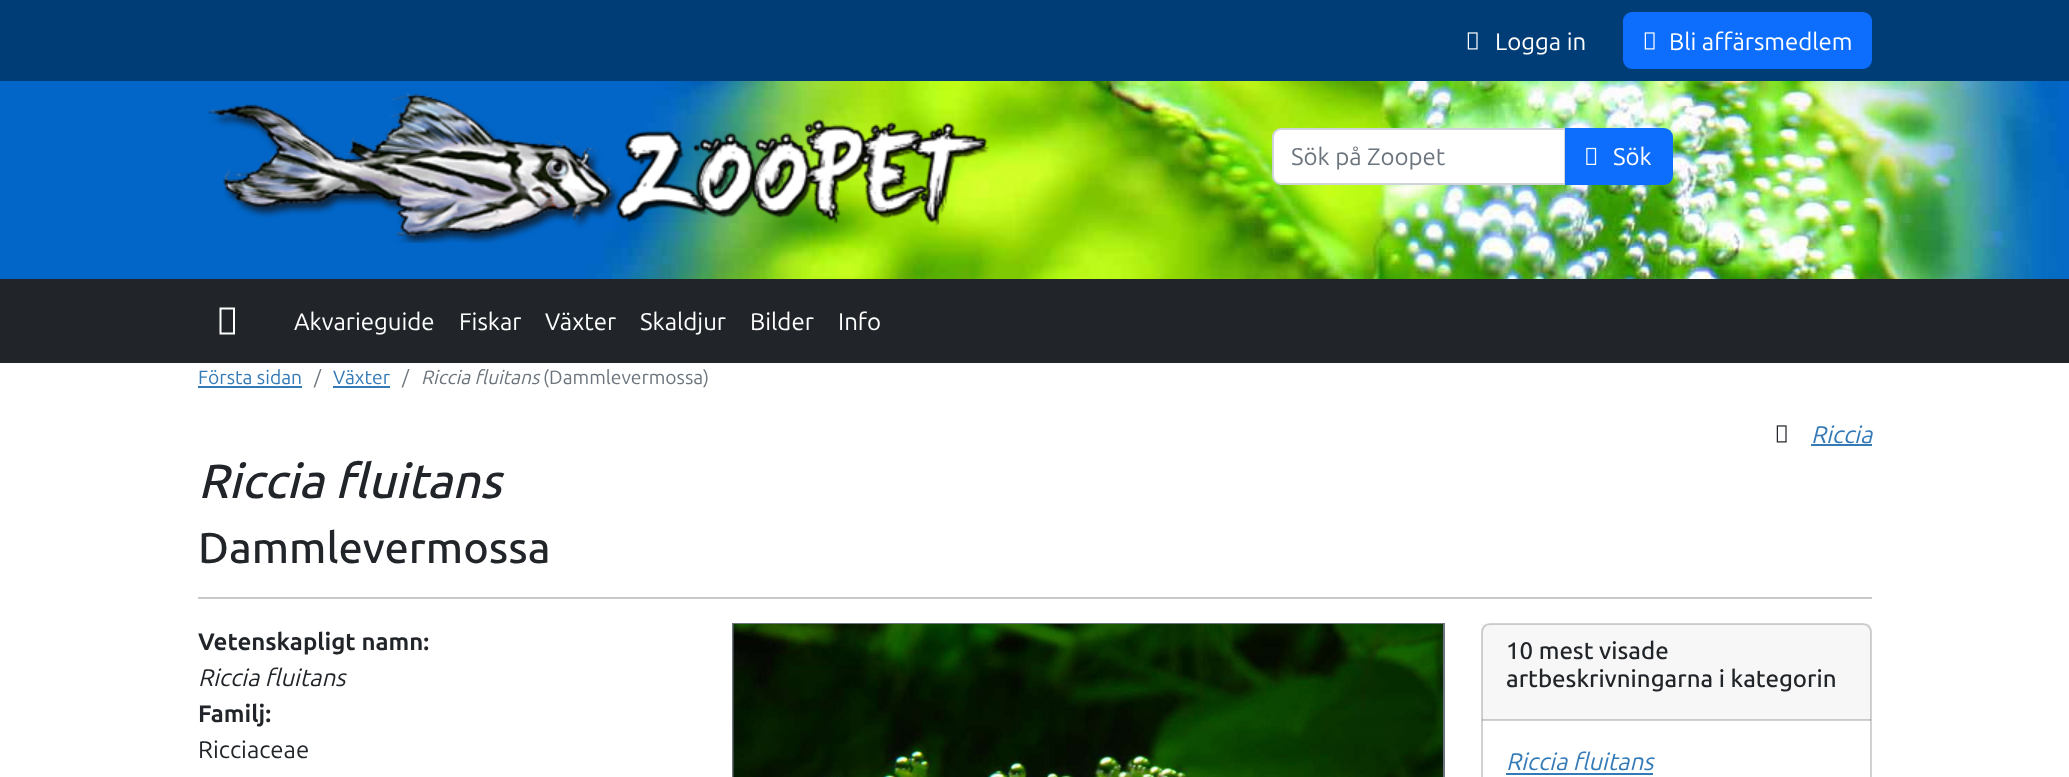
async function draw(canvas) {
  canvas.width = 2069;
  canvas.height = 777;
  const ctx = canvas.getContext('2d');
  ctx.miterLimit = 4;
  ctx.fontKerning = 'normal';
  function label(s, x, y, font, color) {
    ctx.font = font;
    ctx.fillStyle = color;
    ctx.fillText(s, x, y);
  }
  function rect(x, y, w, h, color) {
    ctx.fillStyle = color;
    ctx.fillRect(x, y, w, h);
  }
  async function image(src, x, y, w, h) {
    const img = new Image();
    img.src = src;
    await img.decode();
    ctx.drawImage(img, x, y, w, h);
  }
  let path;

  rect(0, 0, 2069, 777, '#fff');
  rect(0, 0, 2069, 81, '#003c76');
  await image('assets/img1.png', 1467, 32, 11, 18);
  label('Logga in', 1495, 50, '24px Ubuntu', '#fff');
  ctx.fillStyle = '#0d6efd';
  ctx.beginPath();
  ctx.roundRect(1624, 13, 247, 55, 8);
  ctx.fill();
  ctx.strokeStyle = '#0d6efd';
  ctx.lineWidth = 2;
  ctx.stroke();
  await image('assets/img2.png', 1644, 32, 11, 18);
  label('Bli affärsmedlem', 1669, 50, '24px Ubuntu', '#fff');
  await image('assets/img3.png', 0, 81, 2069, 198);
  await image('assets/img4.png', 208, 93, 781, 150);
  ctx.beginPath();
  ctx.roundRect(1273, 129, 292, 55, [8, 0, 0, 8]);
  ctx.fill();
  ctx.strokeStyle = '#ced4da';
  ctx.stroke();
  label('Sök på Zoopet', 1291, 165, '24px Ubuntu', '#6c757d');
  ctx.fillStyle = '#0d6efd';
  ctx.beginPath();
  ctx.roundRect(1566, 129, 106, 55, [0, 8, 8, 0]);
  ctx.fill();
  ctx.strokeStyle = '#0d6efd';
  ctx.stroke();
  await image('assets/img5.png', 1586, 147, 11, 18);
  label('Sök', 1613, 165, '24px Ubuntu', '#fff');
  rect(0, 279, 2069, 84, '#212529');
  ctx.fillStyle = '#fff';
  path = new Path2D('M219.5 334.5V307.5H235V334.5ZM221.5 332.5H233V309.5H221.5Z');
  ctx.fill(path);
  label('Akvarieguide', 294, 330, '24px Ubuntu', '#fff');
  label('Fiskar', 459, 330, '24px Ubuntu', '#fff');
  label('Växter', 545, 330, '24px Ubuntu', '#fff');
  label('Skaldjur', 640, 330, '24px Ubuntu', '#fff');
  label('Bilder', 750, 330, '24px Ubuntu', '#fff');
  label('Info', 838, 330, '24px Ubuntu', '#fff');
  label('Första sidan', 198, 384, '19.25px Ubuntu', '#337ab7');
  rect(198, 386, 104, 2, '#337ab7');
  label('/', 314, 384, '19.25px Ubuntu', '#6c757d');
  label('Växter', 333, 384, '19.25px Ubuntu', '#337ab7');
  rect(333, 386, 57, 2, '#337ab7');
  label('/', 402, 384, '19.25px Ubuntu', '#6c757d');
  label('Riccia fluitans', 421, 384, 'italic 19.25px Ubuntu', '#6c757d');
  label('(Dammlevermossa)', 543, 384, '19.25px Ubuntu', '#6c757d');
  await image('assets/img6.png', 1776, 425, 11, 18);
  label('Riccia', 1811, 443, 'italic 24px Ubuntu', '#337ab7');
  rect(1811, 444, 61, 2, '#337ab7');
  label('Riccia fluitans', 198, 498, 'italic 500 48px Ubuntu', '#212529');
  label('Dammlevermossa', 198, 563, '500 43.25px Ubuntu', '#212529');
  rect(198, 597, 1674, 2, '#c8c9ca');
  label('Vetenskapligt namn:', 198, 650, 'bold 24px Ubuntu', '#212529');
  label('Riccia fluitans', 198, 686, 'italic 24px Ubuntu', '#212529');
  label('Familj:', 198, 722, 'bold 24px Ubuntu', '#212529');
  label('Ricciaceae', 198, 758, '24px Ubuntu', '#212529');
  ctx.strokeStyle = '#6c757d';
  ctx.strokeRect(733, 624, 711, 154);
  await image('assets/img7.png', 733, 624, 710, 153);
  ctx.beginPath();
  ctx.roundRect(1482, 624, 389, 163, 8);
  ctx.strokeStyle = '#d2d2d2';
  ctx.stroke();
  rect(1482, 624, 389, 96, '#00000008');
  rect(1482, 719, 389, 2, '#0000002e');
  label('10 mest visade', 1506, 659, '500 24px Ubuntu', '#212529');
  label('artbeskrivningarna i kategorin', 1506, 687, '500 24px Ubuntu', '#212529');
  label('Riccia fluitans', 1506, 770, 'italic 24px Ubuntu', '#337ab7');
  rect(1506, 773, 147, 2, '#337ab7');
}

draw(document.querySelector('canvas'));
